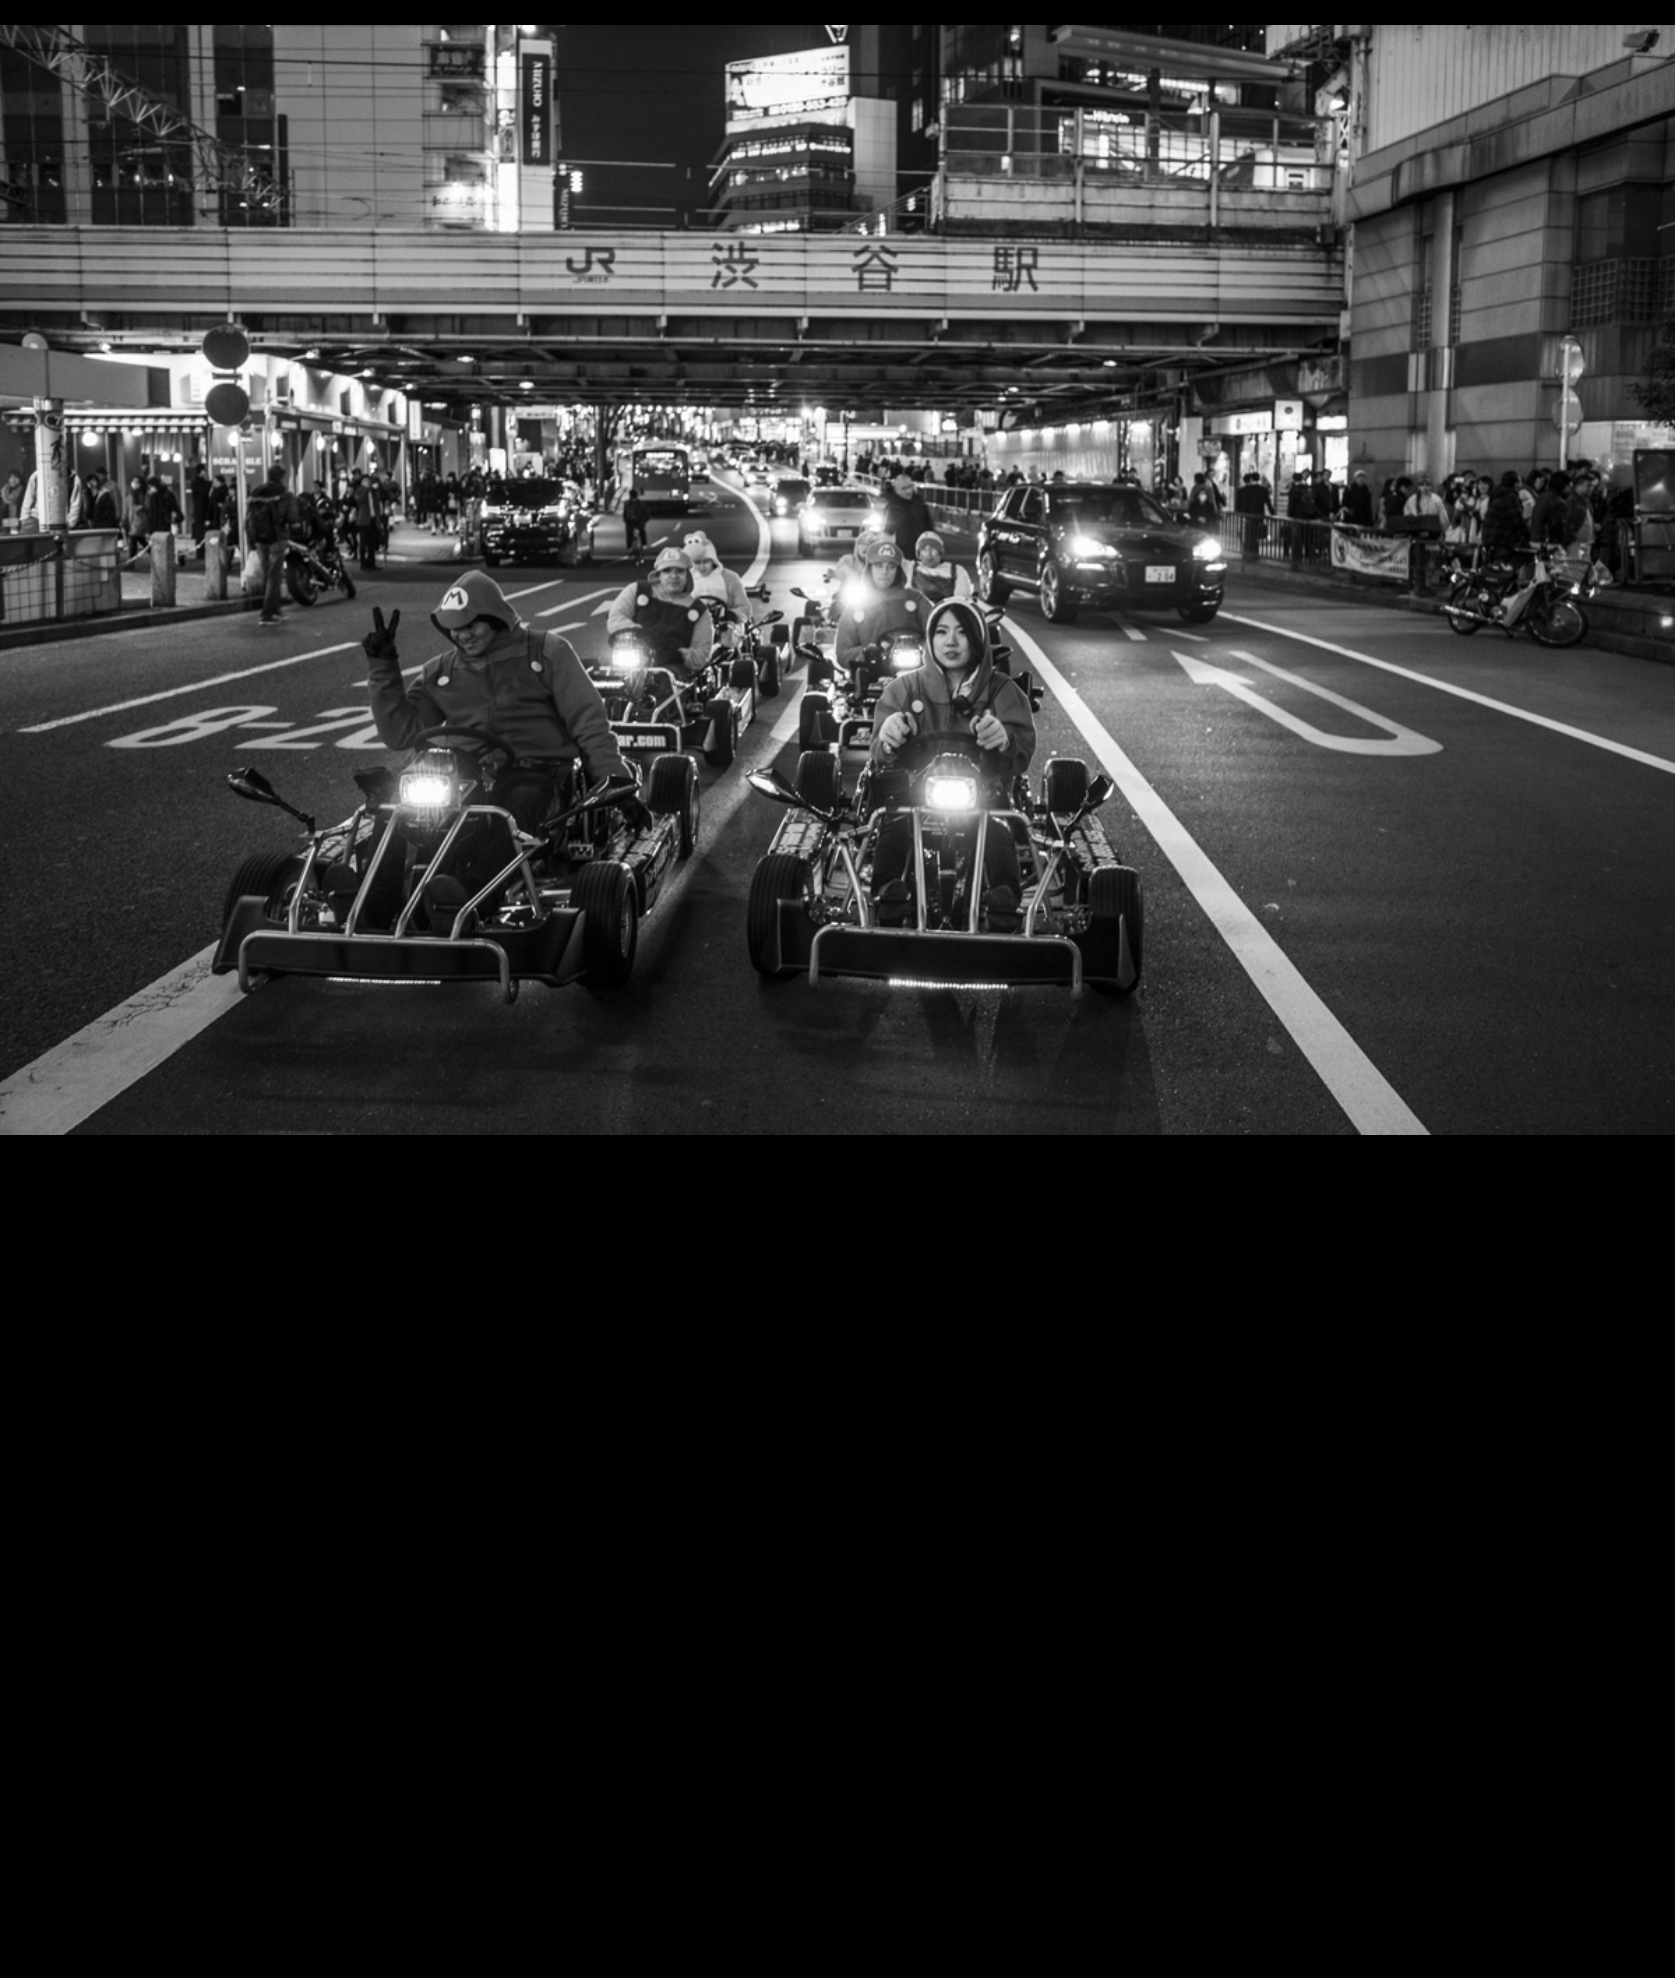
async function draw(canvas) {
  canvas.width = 1675;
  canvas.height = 1978;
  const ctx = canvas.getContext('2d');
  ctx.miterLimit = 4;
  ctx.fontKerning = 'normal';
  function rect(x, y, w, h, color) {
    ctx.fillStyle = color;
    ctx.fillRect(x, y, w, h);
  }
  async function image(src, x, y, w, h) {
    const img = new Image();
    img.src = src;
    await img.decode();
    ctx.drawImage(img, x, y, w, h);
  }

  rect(0, 0, 1675, 1978, '#000');
  await image('assets/img1.png', 0, 25, 1675, 1110);
}

draw(document.querySelector('canvas'));
